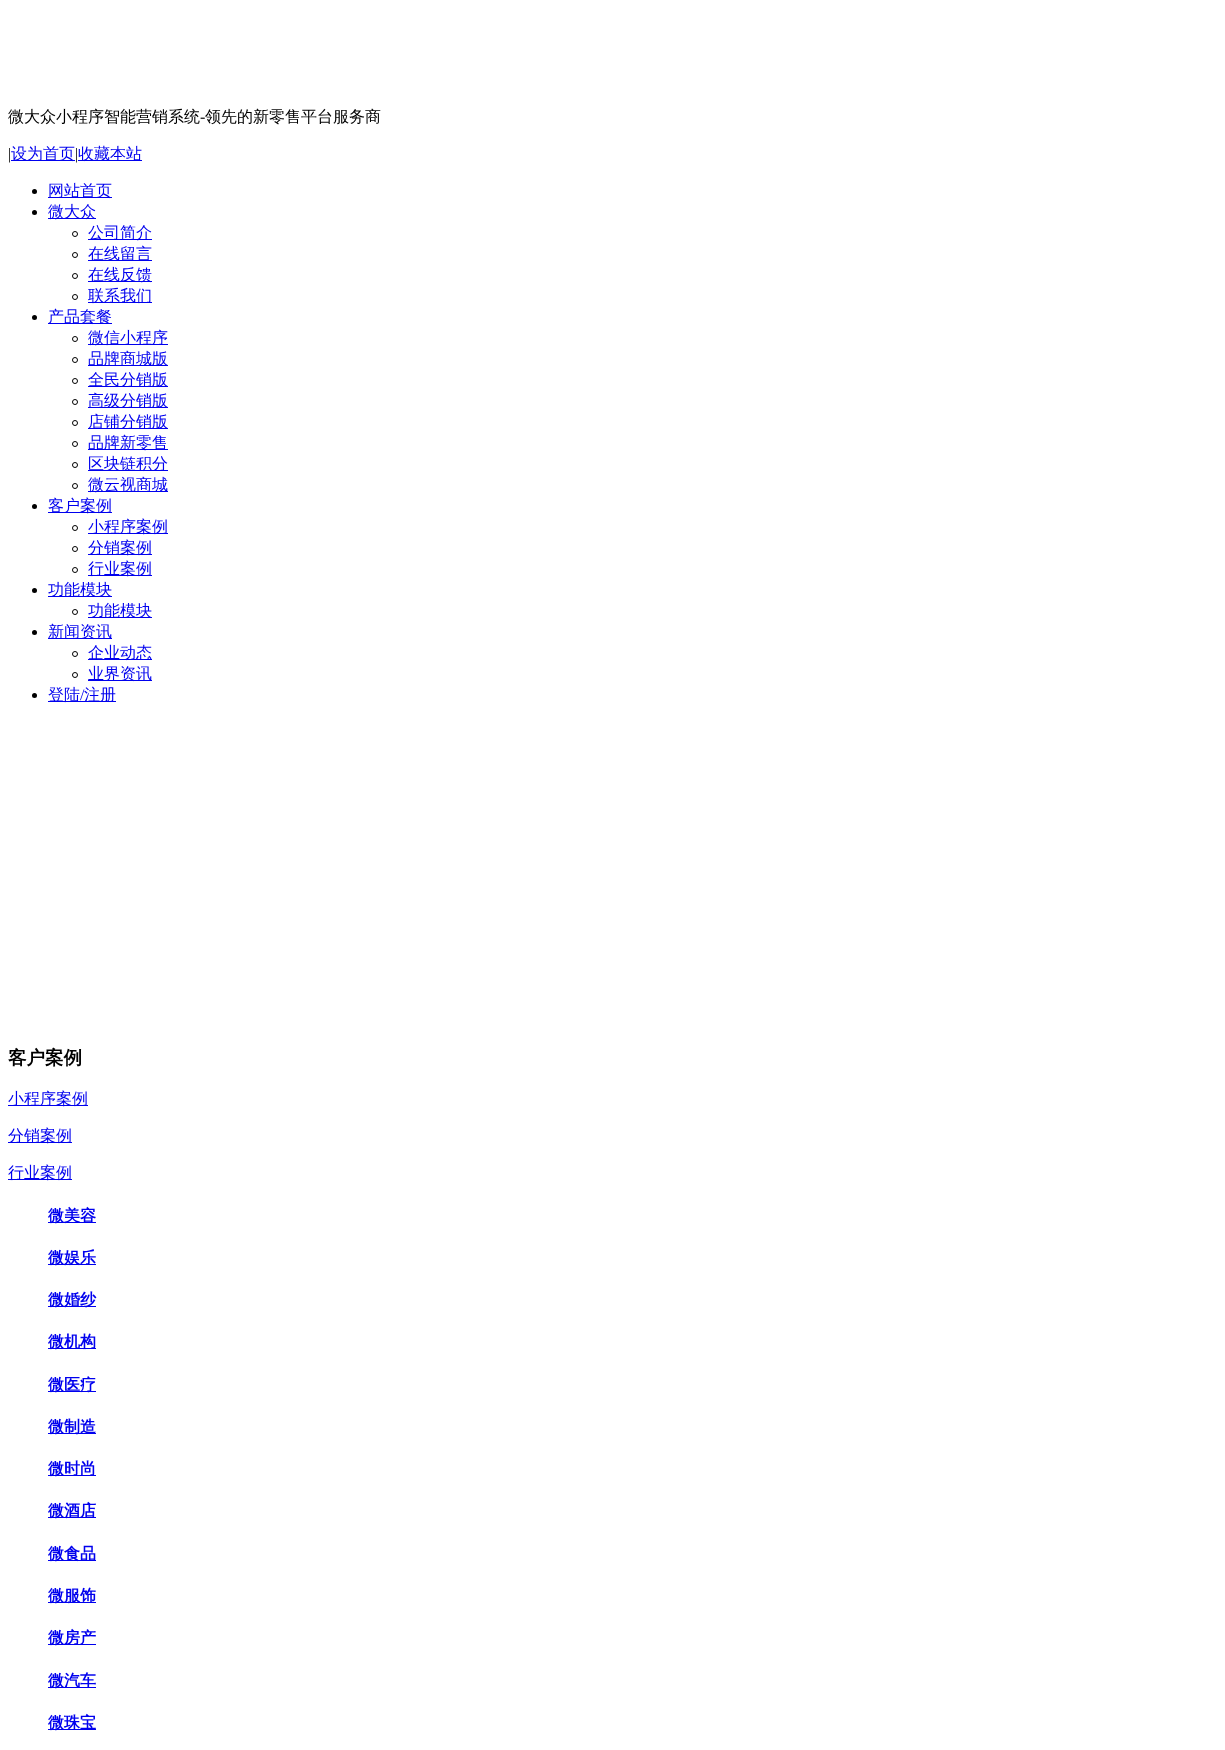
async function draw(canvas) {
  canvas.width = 1225;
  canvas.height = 1750;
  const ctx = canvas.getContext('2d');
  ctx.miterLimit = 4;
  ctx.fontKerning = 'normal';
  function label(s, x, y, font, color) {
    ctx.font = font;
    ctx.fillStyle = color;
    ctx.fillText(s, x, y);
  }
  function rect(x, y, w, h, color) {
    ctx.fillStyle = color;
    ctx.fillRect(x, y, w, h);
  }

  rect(0, 0, 1225, 1750, '#fff');
  label('微大众小程序智能营销系统', 8, 122, '500 16px WenQuanYi Zen Hei', '#000');
  label('-', 200, 122, '16px Liberation Serif', '#000');
  label('领先的新零售平台服务商', 205, 122, '500 16px WenQuanYi Zen Hei', '#000');
  label('|', 8, 159, '16px Liberation Serif', '#000');
  rect(11, 160, 64, 1, '#00e');
  label('设为首页', 11, 159, '500 16px WenQuanYi Zen Hei', '#00e');
  label('|', 75, 159, '16px Liberation Serif', '#000');
  rect(78, 160, 64, 1, '#00e');
  label('收藏本站', 78, 159, '500 16px WenQuanYi Zen Hei', '#00e');
  ctx.fillStyle = '#000';
  ctx.beginPath();
  ctx.arc(34.5, 191.5, 2.5, 0, 2 * Math.PI);
  ctx.fill();
  rect(48, 197, 64, 1, '#00e');
  label('网站首页', 48, 196, '500 16px WenQuanYi Zen Hei', '#00e');
  ctx.fillStyle = '#000';
  ctx.beginPath();
  ctx.arc(34.5, 212.5, 2.5, 0, 2 * Math.PI);
  ctx.fill();
  rect(48, 218, 48, 1, '#00e');
  label('微大众', 48, 217, '500 16px WenQuanYi Zen Hei', '#00e');
  ctx.beginPath();
  ctx.arc(75, 234, 2.5, 0, 2 * Math.PI);
  ctx.strokeStyle = '#000';
  ctx.stroke();
  rect(88, 239, 64, 1, '#00e');
  label('公司简介', 88, 238, '500 16px WenQuanYi Zen Hei', '#00e');
  ctx.beginPath();
  ctx.arc(75, 255, 2.5, 0, 2 * Math.PI);
  ctx.stroke();
  rect(88, 260, 64, 1, '#00e');
  label('在线留言', 88, 259, '500 16px WenQuanYi Zen Hei', '#00e');
  ctx.beginPath();
  ctx.arc(75, 276, 2.5, 0, 2 * Math.PI);
  ctx.stroke();
  rect(88, 281, 64, 1, '#00e');
  label('在线反馈', 88, 280, '500 16px WenQuanYi Zen Hei', '#00e');
  ctx.beginPath();
  ctx.arc(75, 297, 2.5, 0, 2 * Math.PI);
  ctx.stroke();
  rect(88, 302, 64, 1, '#00e');
  label('联系我们', 88, 301, '500 16px WenQuanYi Zen Hei', '#00e');
  ctx.fillStyle = '#000';
  ctx.beginPath();
  ctx.arc(34.5, 317.5, 2.5, 0, 2 * Math.PI);
  ctx.fill();
  rect(48, 323, 64, 1, '#00e');
  label('产品套餐', 48, 322, '500 16px WenQuanYi Zen Hei', '#00e');
  ctx.beginPath();
  ctx.arc(75, 339, 2.5, 0, 2 * Math.PI);
  ctx.stroke();
  rect(88, 344, 80, 1, '#00e');
  label('微信小程序', 88, 343, '500 16px WenQuanYi Zen Hei', '#00e');
  ctx.beginPath();
  ctx.arc(75, 360, 2.5, 0, 2 * Math.PI);
  ctx.stroke();
  rect(88, 365, 80, 1, '#00e');
  label('品牌商城版', 88, 364, '500 16px WenQuanYi Zen Hei', '#00e');
  ctx.beginPath();
  ctx.arc(75, 381, 2.5, 0, 2 * Math.PI);
  ctx.stroke();
  rect(88, 386, 80, 1, '#00e');
  label('全民分销版', 88, 385, '500 16px WenQuanYi Zen Hei', '#00e');
  ctx.beginPath();
  ctx.arc(75, 402, 2.5, 0, 2 * Math.PI);
  ctx.stroke();
  rect(88, 407, 80, 1, '#00e');
  label('高级分销版', 88, 406, '500 16px WenQuanYi Zen Hei', '#00e');
  ctx.beginPath();
  ctx.arc(75, 423, 2.5, 0, 2 * Math.PI);
  ctx.stroke();
  rect(88, 428, 80, 1, '#00e');
  label('店铺分销版', 88, 427, '500 16px WenQuanYi Zen Hei', '#00e');
  ctx.beginPath();
  ctx.arc(75, 444, 2.5, 0, 2 * Math.PI);
  ctx.stroke();
  rect(88, 449, 80, 1, '#00e');
  label('品牌新零售', 88, 448, '500 16px WenQuanYi Zen Hei', '#00e');
  ctx.beginPath();
  ctx.arc(75, 465, 2.5, 0, 2 * Math.PI);
  ctx.stroke();
  rect(88, 470, 80, 1, '#00e');
  label('区块链积分', 88, 469, '500 16px WenQuanYi Zen Hei', '#00e');
  ctx.beginPath();
  ctx.arc(75, 486, 2.5, 0, 2 * Math.PI);
  ctx.stroke();
  rect(88, 491, 80, 1, '#00e');
  label('微云视商城', 88, 490, '500 16px WenQuanYi Zen Hei', '#00e');
  ctx.fillStyle = '#000';
  ctx.beginPath();
  ctx.arc(34.5, 506.5, 2.5, 0, 2 * Math.PI);
  ctx.fill();
  rect(48, 512, 64, 1, '#00e');
  label('客户案例', 48, 511, '500 16px WenQuanYi Zen Hei', '#00e');
  ctx.beginPath();
  ctx.arc(75, 528, 2.5, 0, 2 * Math.PI);
  ctx.stroke();
  rect(88, 533, 80, 1, '#00e');
  label('小程序案例', 88, 532, '500 16px WenQuanYi Zen Hei', '#00e');
  ctx.beginPath();
  ctx.arc(75, 549, 2.5, 0, 2 * Math.PI);
  ctx.stroke();
  rect(88, 554, 64, 1, '#00e');
  label('分销案例', 88, 553, '500 16px WenQuanYi Zen Hei', '#00e');
  ctx.beginPath();
  ctx.arc(75, 570, 2.5, 0, 2 * Math.PI);
  ctx.stroke();
  rect(88, 575, 64, 1, '#00e');
  label('行业案例', 88, 574, '500 16px WenQuanYi Zen Hei', '#00e');
  ctx.fillStyle = '#000';
  ctx.beginPath();
  ctx.arc(34.5, 590.5, 2.5, 0, 2 * Math.PI);
  ctx.fill();
  rect(48, 596, 64, 1, '#00e');
  label('功能模块', 48, 595, '500 16px WenQuanYi Zen Hei', '#00e');
  ctx.beginPath();
  ctx.arc(75, 612, 2.5, 0, 2 * Math.PI);
  ctx.stroke();
  rect(88, 617, 64, 1, '#00e');
  label('功能模块', 88, 616, '500 16px WenQuanYi Zen Hei', '#00e');
  ctx.fillStyle = '#000';
  ctx.beginPath();
  ctx.arc(34.5, 632.5, 2.5, 0, 2 * Math.PI);
  ctx.fill();
  rect(48, 638, 64, 1, '#00e');
  label('新闻资讯', 48, 637, '500 16px WenQuanYi Zen Hei', '#00e');
  ctx.beginPath();
  ctx.arc(75, 654, 2.5, 0, 2 * Math.PI);
  ctx.stroke();
  rect(88, 659, 64, 1, '#00e');
  label('企业动态', 88, 658, '500 16px WenQuanYi Zen Hei', '#00e');
  ctx.beginPath();
  ctx.arc(75, 675, 2.5, 0, 2 * Math.PI);
  ctx.stroke();
  rect(88, 680, 64, 1, '#00e');
  label('业界资讯', 88, 679, '500 16px WenQuanYi Zen Hei', '#00e');
  ctx.fillStyle = '#000';
  ctx.beginPath();
  ctx.arc(34.5, 695.5, 2.5, 0, 2 * Math.PI);
  ctx.fill();
  rect(48, 701, 68, 1, '#00e');
  label('登陆', 48, 700, '500 16px WenQuanYi Zen Hei', '#00e');
  label('/', 80, 700, '16px Liberation Serif', '#00e');
  label('注册', 84, 700, '500 16px WenQuanYi Zen Hei', '#00e');
  label('客户案例', 8, 1064, 'bold 18.5px WenQuanYi Zen Hei', '#000');
  rect(8, 1105, 80, 1, '#00e');
  label('小程序案例', 8, 1104, '500 16px WenQuanYi Zen Hei', '#00e');
  rect(8, 1142, 64, 1, '#00e');
  label('分销案例', 8, 1141, '500 16px WenQuanYi Zen Hei', '#00e');
  rect(8, 1179, 64, 1, '#00e');
  label('行业案例', 8, 1178, '500 16px WenQuanYi Zen Hei', '#00e');
  rect(48, 1222, 48, 1, '#00e');
  label('微美容', 48, 1221, 'bold 16px WenQuanYi Zen Hei', '#00e');
  rect(48, 1264, 48, 1, '#00e');
  label('微娱乐', 48, 1263, 'bold 16px WenQuanYi Zen Hei', '#00e');
  rect(48, 1306, 48, 1, '#00e');
  label('微婚纱', 48, 1305, 'bold 16px WenQuanYi Zen Hei', '#00e');
  rect(48, 1348, 48, 1, '#00e');
  label('微机构', 48, 1347, 'bold 16px WenQuanYi Zen Hei', '#00e');
  rect(48, 1391, 48, 1, '#00e');
  label('微医疗', 48, 1390, 'bold 16px WenQuanYi Zen Hei', '#00e');
  rect(48, 1433, 48, 1, '#00e');
  label('微制造', 48, 1432, 'bold 16px WenQuanYi Zen Hei', '#00e');
  rect(48, 1475, 48, 1, '#00e');
  label('微时尚', 48, 1474, 'bold 16px WenQuanYi Zen Hei', '#00e');
  rect(48, 1517, 48, 1, '#00e');
  label('微酒店', 48, 1516, 'bold 16px WenQuanYi Zen Hei', '#00e');
  rect(48, 1560, 48, 1, '#00e');
  label('微食品', 48, 1559, 'bold 16px WenQuanYi Zen Hei', '#00e');
  rect(48, 1602, 48, 1, '#00e');
  label('微服饰', 48, 1601, 'bold 16px WenQuanYi Zen Hei', '#00e');
  rect(48, 1644, 48, 1, '#00e');
  label('微房产', 48, 1643, 'bold 16px WenQuanYi Zen Hei', '#00e');
  rect(48, 1687, 48, 1, '#00e');
  label('微汽车', 48, 1686, 'bold 16px WenQuanYi Zen Hei', '#00e');
  rect(48, 1729, 48, 1, '#00e');
  label('微珠宝', 48, 1728, 'bold 16px WenQuanYi Zen Hei', '#00e');
}

draw(document.querySelector('canvas'));
